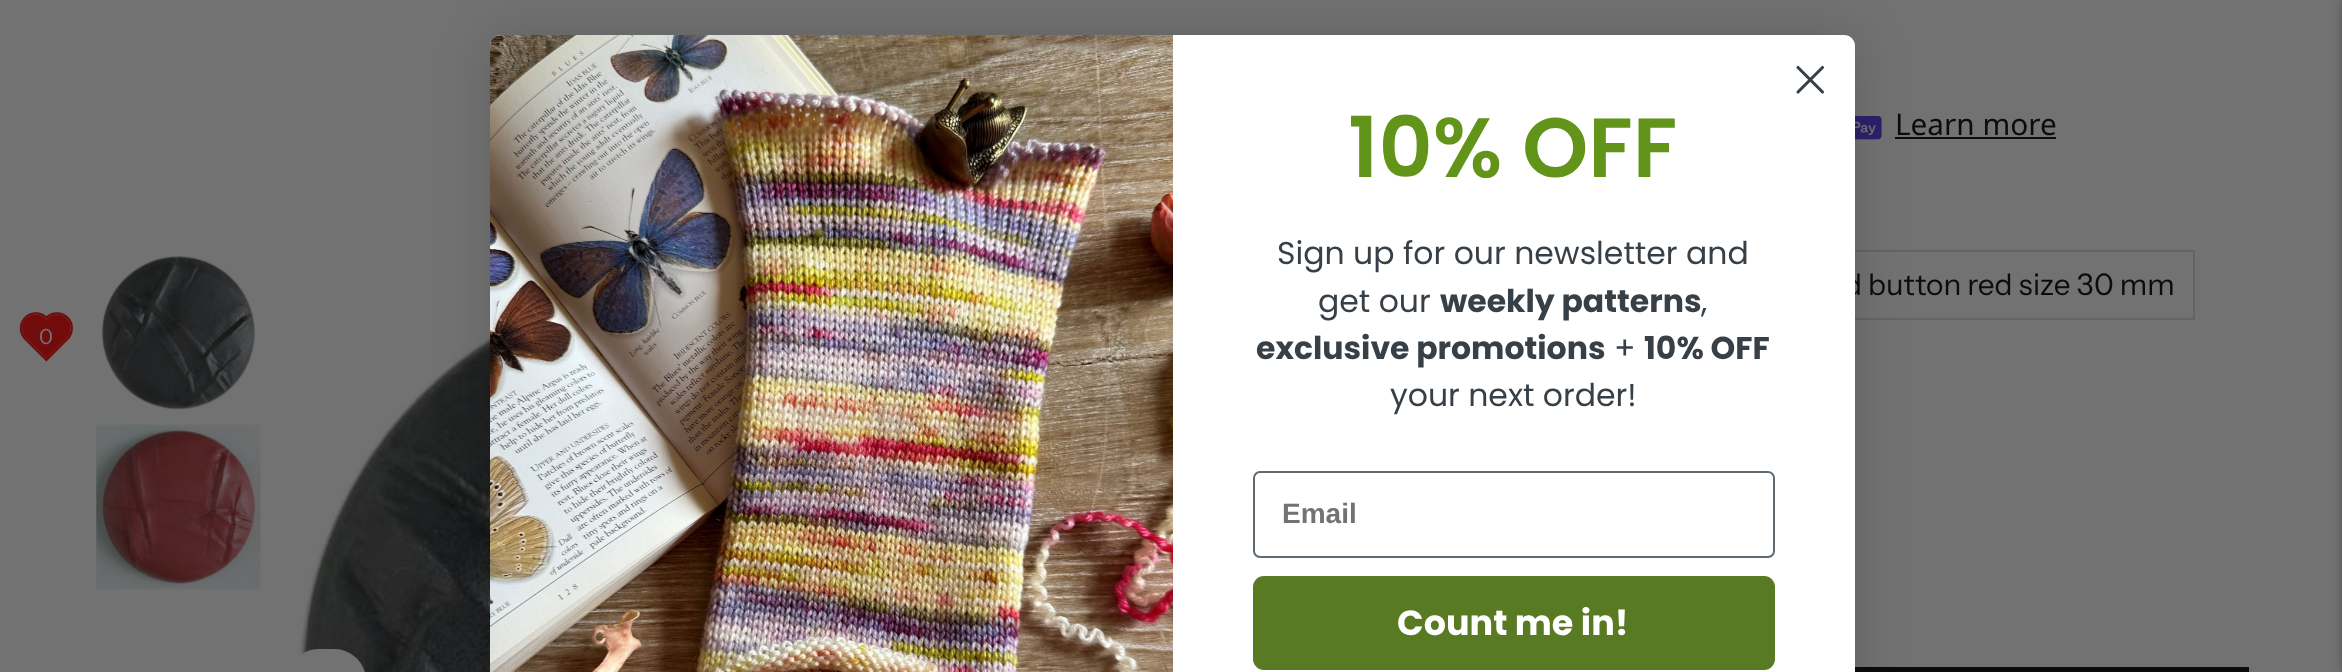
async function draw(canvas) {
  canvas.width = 2342;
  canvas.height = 672;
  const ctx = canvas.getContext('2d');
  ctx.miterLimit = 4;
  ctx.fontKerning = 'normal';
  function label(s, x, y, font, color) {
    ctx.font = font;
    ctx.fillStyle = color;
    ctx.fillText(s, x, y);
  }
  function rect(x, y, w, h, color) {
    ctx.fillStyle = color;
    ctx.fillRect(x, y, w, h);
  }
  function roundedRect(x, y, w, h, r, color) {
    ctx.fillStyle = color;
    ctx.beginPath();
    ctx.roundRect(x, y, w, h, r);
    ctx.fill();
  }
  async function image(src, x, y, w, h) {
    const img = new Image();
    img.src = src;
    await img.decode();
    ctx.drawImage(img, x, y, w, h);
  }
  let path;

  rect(0, 0, 2342, 672, '#727272');
  await image('assets/img1.png', 19, 312, 54, 50);
  label('0', 39, 344, '21px Instrument Sans', '#727272');
  ctx.fillStyle = '#00000080';
  ctx.filter = 'blur(6px)';
  ctx.beginPath();
  ctx.rect(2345, 0, 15, 672);
  ctx.fill();
  ctx.filter = 'none';
  await image('assets/img3.png', 1855, 116, 27, 24);
  rect(1895, 137, 161, 2, '#0c0c0c');
  ctx.strokeStyle = '#646464';
  ctx.lineWidth = 2;
  ctx.strokeRect(1718, 251, 476, 68);
  rect(1855, 667, 394, 5, '#0c0c0c');
  await image('assets/img6.png', 298, 273, 192, 399);
  ctx.fillStyle = '#00000026';
  ctx.filter = 'blur(26px)';
  ctx.beginPath();
  ctx.roundRect(490, 35, 1365, 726, 11);
  ctx.fill();
  ctx.filter = 'none';
  label('d button red size 30 mm', 1844, 295, '29.75px Instrument Sans', '#0c0c0c');
  ctx.fillStyle = '#fff';
  ctx.beginPath();
  ctx.roundRect(490, 35, 1365, 637, [11, 11, 0, 0]);
  ctx.fill();
  path = new Path2D('M1798 67.5L1822.5 92M1798 92L1822.5 67.5Z');
  ctx.strokeStyle = '#373f47';
  ctx.lineWidth = 3.1;
  ctx.lineCap = 'round';
  ctx.lineJoin = 'round';
  ctx.stroke(path);
  await image('assets/img2.png', 490, 35, 683, 637);
  label('10% OFF', 1348, 177, '600 84px Poppins', '#63941a');
  label('Sign up for our newsletter and', 1277, 264, '31.5px Poppins', '#373f47');
  label('get our', 1318, 312, '31.5px Poppins', '#373f47');
  label('weekly patterns', 1440, 312, 'bold 31.5px Poppins', '#373f47');
  label(',', 1701, 312, '31.5px Poppins', '#373f47');
  label('exclusive promotions', 1256, 359, 'bold 31.5px Poppins', '#373f47');
  label('+', 1614, 359, '31.5px Poppins', '#373f47');
  label('10% OFF', 1644, 359, 'bold 31.5px Poppins', '#373f47');
  label('your next order!', 1390, 406, '31.5px Poppins', '#373f47');
  ctx.beginPath();
  ctx.roundRect(1254, 472, 520, 85, 6);
  ctx.strokeStyle = '#606a72';
  ctx.lineWidth = 2;
  ctx.lineJoin = 'miter';
  ctx.stroke();
  label('Email', 1282, 523, 'bold 28px Liberation Sans', '#727272');
  roundedRect(1253, 576, 522, 94, 11, '#577a22');
  label('Count me in!', 1397, 635, 'bold 35px Poppins', '#fff');
  label('Learn more', 1895, 135, '29.75px Noto Sans', '#0c0c0c');
  await image('assets/img4.png', 101, 256, 155, 154);
  await image('assets/img5.png', 96, 424, 165, 166);
  roundedRect(287, 649, 79, 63, 39.5, '#727272');
}

draw(document.querySelector('canvas'));
